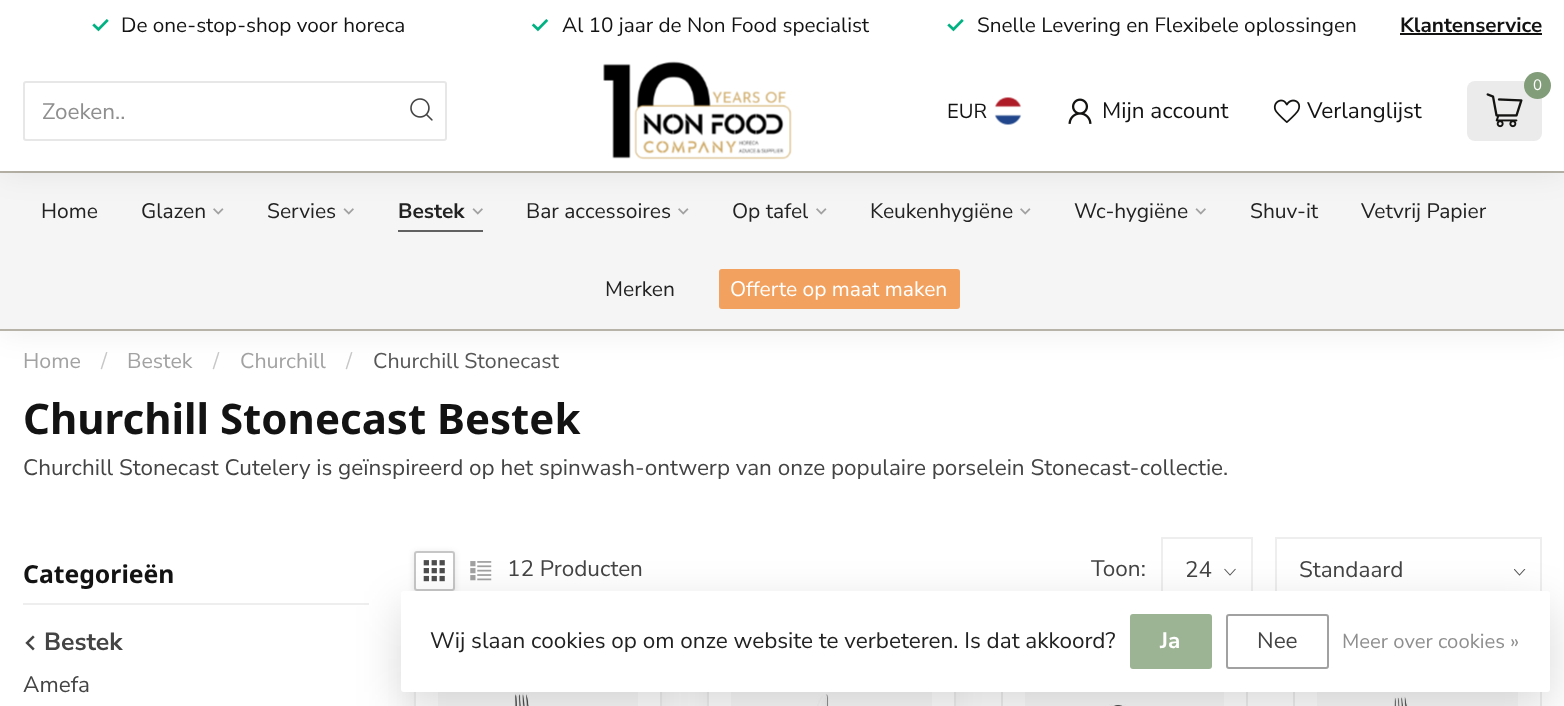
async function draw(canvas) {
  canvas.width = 1564;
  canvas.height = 706;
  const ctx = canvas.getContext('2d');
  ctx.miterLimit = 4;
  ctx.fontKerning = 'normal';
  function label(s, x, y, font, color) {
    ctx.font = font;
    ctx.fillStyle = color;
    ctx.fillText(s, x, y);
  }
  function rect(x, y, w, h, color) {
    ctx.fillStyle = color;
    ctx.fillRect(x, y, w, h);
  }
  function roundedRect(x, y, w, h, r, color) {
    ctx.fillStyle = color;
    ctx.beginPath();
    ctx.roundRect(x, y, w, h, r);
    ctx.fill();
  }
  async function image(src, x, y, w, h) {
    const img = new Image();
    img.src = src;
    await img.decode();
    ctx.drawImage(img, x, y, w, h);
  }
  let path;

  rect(0, 0, 1564, 706, '#fff');
  ctx.fillStyle = '#00000014';
  ctx.filter = 'blur(16.5px)';
  ctx.beginPath();
  ctx.rect(0, 171, 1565, 159);
  ctx.fill();
  ctx.filter = 'none';
  rect(0, 173, 1564, 156, '#f5f5f5');
  rect(0, 171, 1564, 2, '#b7b3a8');
  await image('assets/img9.png', 213, 208, 11, 7);
  await image('assets/img10.png', 343, 208, 11, 7);
  await image('assets/img10.png', 472, 208, 11, 7);
  await image('assets/img9.png', 678, 208, 11, 7);
  await image('assets/img9.png', 816, 208, 11, 7);
  await image('assets/img9.png', 1020, 208, 11, 7);
  await image('assets/img10.png', 1195, 208, 11, 7);
  ctx.fillStyle = '#00000014';
  ctx.filter = 'blur(16.5px)';
  ctx.beginPath();
  ctx.rect(0, 0, 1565, 171);
  ctx.fill();
  ctx.filter = 'none';
  rect(0, 0, 1564, 171, '#fff');
  await image('assets/img1.png', 92, 19, 17, 13);
  label('De one-stop-shop voor horeca', 121, 32, '20.75px Nunito Sans', '#131313');
  await image('assets/img2.png', 531, 19, 18, 13);
  label('Al 10 jaar de Non Food specialist', 562, 32, '20.75px Nunito Sans', '#131313');
  await image('assets/img1.png', 947, 19, 17, 13);
  label('Snelle Levering en Flexibele oplossingen', 977, 32, '20.75px Nunito Sans', '#131313');
  label('Klantenservice', 1400, 32, 'bold 20.75px Nunito Sans', '#131313');
  rect(1400, 33, 142, 2, '#131312');
  ctx.beginPath();
  ctx.roundRect(24, 82, 422, 58, 2);
  ctx.strokeStyle = '#e7e7e7';
  ctx.lineWidth = 2;
  ctx.stroke();
  label('Zoeken..', 42, 119, '22.5px Nunito Sans', '#8f8f8f');
  await image('assets/img3.png', 410, 98, 23, 23);
  await image('assets/img4.png', 587, 59, 214, 101);
  roundedRect(1467, 81, 75, 60, 8, '#ebebeb');
  ctx.fillStyle = '#829d79';
  ctx.beginPath();
  ctx.arc(1537.5, 85.5, 13.5, 0, 2 * Math.PI);
  ctx.fill();
  label('0', 1533, 90, '15px Nunito Sans', '#fff');
  await image('assets/img5.png', 1486, 93, 37, 35);
  label('EUR', 947, 118, '20.25px Nunito Sans', '#131313');
  await image('assets/img6.png', 994, 97, 28, 28);
  await image('assets/img7.png', 1068, 98, 24, 26);
  label('Mijn account', 1102, 118, '22.5px Nunito Sans', '#131313');
  await image('assets/img8.png', 1273, 99, 28, 24);
  label('Verlanglijst', 1307, 118, '22.5px Nunito Sans', '#131313');
  rect(0, 329, 1564, 2, '#b7b3a8');
  label('Home', 41, 218, '21px Nunito Sans', '#222');
  label('Glazen', 141, 218, '21px Nunito Sans', '#222');
  label('Servies', 267, 218, '21px Nunito Sans', '#222');
  label('Bestek', 398, 218, 'bold 21px Nunito Sans', '#222');
  rect(398, 230, 85, 2, '#616161');
  label('Bar accessoires', 526, 218, '21px Nunito Sans', '#222');
  label('Op tafel', 732, 218, '21px Nunito Sans', '#222');
  label('Keukenhygiëne', 870, 218, '21px Nunito Sans', '#222');
  label('Wc-hygiëne', 1074, 218, '21px Nunito Sans', '#222');
  label('Shuv-it', 1250, 218, '21px Nunito Sans', '#222');
  label('Vetvrij Papier', 1361, 218, '21px Nunito Sans', '#222');
  label('Merken', 605, 296, '21px Nunito Sans', '#222');
  roundedRect(719, 269, 241, 40, 3, '#f3a15e');
  label('Offerte op maat maken', 730, 296, '21px Nunito Sans', '#fff');
  label('Home', 23, 368, '21.4px Nunito Sans', '#a2a2a2');
  label('/', 101, 368, '21.4px Nunito Sans', '#c7c7c7');
  label('Bestek', 127, 368, '21.4px Nunito Sans', '#a2a2a2');
  label('/', 213, 368, '21.4px Nunito Sans', '#c7c7c7');
  label('Churchill', 240, 368, '21.4px Nunito Sans', '#a2a2a2');
  label('/', 346, 368, '21.4px Nunito Sans', '#c7c7c7');
  label('Churchill Stonecast', 373, 368, '21.4px Nunito Sans', '#575757');
  label('Churchill Stonecast Bestek', 23, 434, 'bold 42px Noto Sans', '#131313');
  label('Churchill Stonecast Cutelery is geïnspireerd op het spinwash-ontwerp van onze populaire porselein Stonecast-collectie.', 23, 475, '22.5px Nunito Sans', '#444');
  rect(23, 603, 346, 2, '#eee');
  label('Categorieën', 23, 583, 'bold 24.75px Noto Sans', '#131313');
  await image('assets/img11.png', 25, 635, 10, 16);
  label('Bestek', 44, 650, 'bold 24.75px Nunito Sans', '#444');
  label('Amefa', 23, 692, '22.5px Nunito Sans', '#444');
  ctx.save();
  path = new Path2D('M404 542H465V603H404ZM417 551H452C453.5 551 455 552.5 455 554V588C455 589.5 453.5 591 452 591H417C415.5 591 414 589.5 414 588V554C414 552.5 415.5 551 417 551Z');
  ctx.clip(path, 'evenodd');
  ctx.fillStyle = '#0000001a';
  ctx.filter = 'blur(3px)';
  ctx.beginPath();
  ctx.roundRect(414, 552, 41, 41, 3);
  ctx.fill();
  ctx.filter = 'none';
  ctx.restore();
  ctx.beginPath();
  ctx.roundRect(415, 552, 39, 38, 2);
  ctx.strokeStyle = '#c6c6c6';
  ctx.stroke();
  await image('assets/img12.png', 423, 560, 22, 22);
  await image('assets/img13.png', 470, 561, 22, 20);
  label('12 Producten', 507, 576, '22.5px Nunito Sans', '#444');
  label('Toon:', 1091, 576, '22.5px Nunito Sans', '#444');
  path = new Path2D('M1235.5 569L1230 575L1224.5 569');
  ctx.strokeStyle = '#595959';
  ctx.lineWidth = 1.1;
  ctx.stroke(path);
  ctx.strokeStyle = '#eee';
  ctx.lineWidth = 2;
  ctx.strokeRect(1162, 538, 90, 66);
  label('24', 1185, 577, '22.5px Nunito Sans', '#444');
  ctx.save();
  ctx.beginPath();
  ctx.rect(1514, 569, 12, 7);
  ctx.clip();
  path = new Path2D('M1525 569L1519.5 575L1514 569');
  ctx.strokeStyle = '#595959';
  ctx.lineWidth = 1.1;
  ctx.stroke(path);
  ctx.restore();
  ctx.strokeRect(1276, 538, 265, 66);
  label('Standaard', 1299, 577, '22.5px Nunito Sans', '#444');
  ctx.fillStyle = '#00000012';
  ctx.filter = 'blur(19.5px)';
  ctx.beginPath();
  ctx.rect(423, 659, 230, 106);
  ctx.fill();
  ctx.filter = 'none';
  rect(416, 692, 244, 14, '#fff');
  ctx.strokeRect(415, 651, 246, 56);
  rect(438, 692, 200, 14, '#f9f9f9');
  await image('assets/img14.png', 514, 693, 15, 13);
  ctx.fillStyle = '#00000012';
  ctx.filter = 'blur(19.5px)';
  ctx.beginPath();
  ctx.rect(716, 659, 231, 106);
  ctx.fill();
  ctx.filter = 'none';
  rect(709, 692, 245, 14, '#fff');
  ctx.strokeRect(708, 651, 247, 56);
  rect(731, 692, 201, 14, '#f9f9f9');
  await image('assets/img15.png', 817, 694, 12, 12);
  ctx.strokeRect(1002, 651, 245, 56);
  rect(1025, 692, 199, 14, '#f9f9f9');
  await image('assets/img16.png', 1109, 704, 17, 2);
  ctx.strokeRect(1294, 651, 247, 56);
  rect(1317, 692, 201, 14, '#f9f9f9');
  await image('assets/img17.png', 1394, 696, 14, 10);
  ctx.fillStyle = '#00000026';
  ctx.filter = 'blur(22.5px)';
  ctx.beginPath();
  ctx.roundRect(401, 606, 1149, 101, 3);
  ctx.fill();
  ctx.filter = 'none';
  roundedRect(401, 591, 1149, 101, 3, '#fff');
  label('Wij slaan cookies op om onze website te verbeteren. Is dat akkoord?', 430, 648, '22.5px Nunito Sans', '#222');
  roundedRect(1130, 614, 82, 55, 3, '#9cb493');
  label('Ja', 1160, 648, 'bold 22.5px Nunito Sans', '#fff');
  ctx.beginPath();
  ctx.roundRect(1227, 615, 101, 53, 2);
  ctx.strokeStyle = '#a1a1a1';
  ctx.stroke();
  label('Nee', 1257, 648, '22.5px Nunito Sans', '#444');
  label('Meer over cookies »', 1342, 648, '20.25px Nunito Sans', '#8f8f8f');
}

draw(document.querySelector('canvas'));
